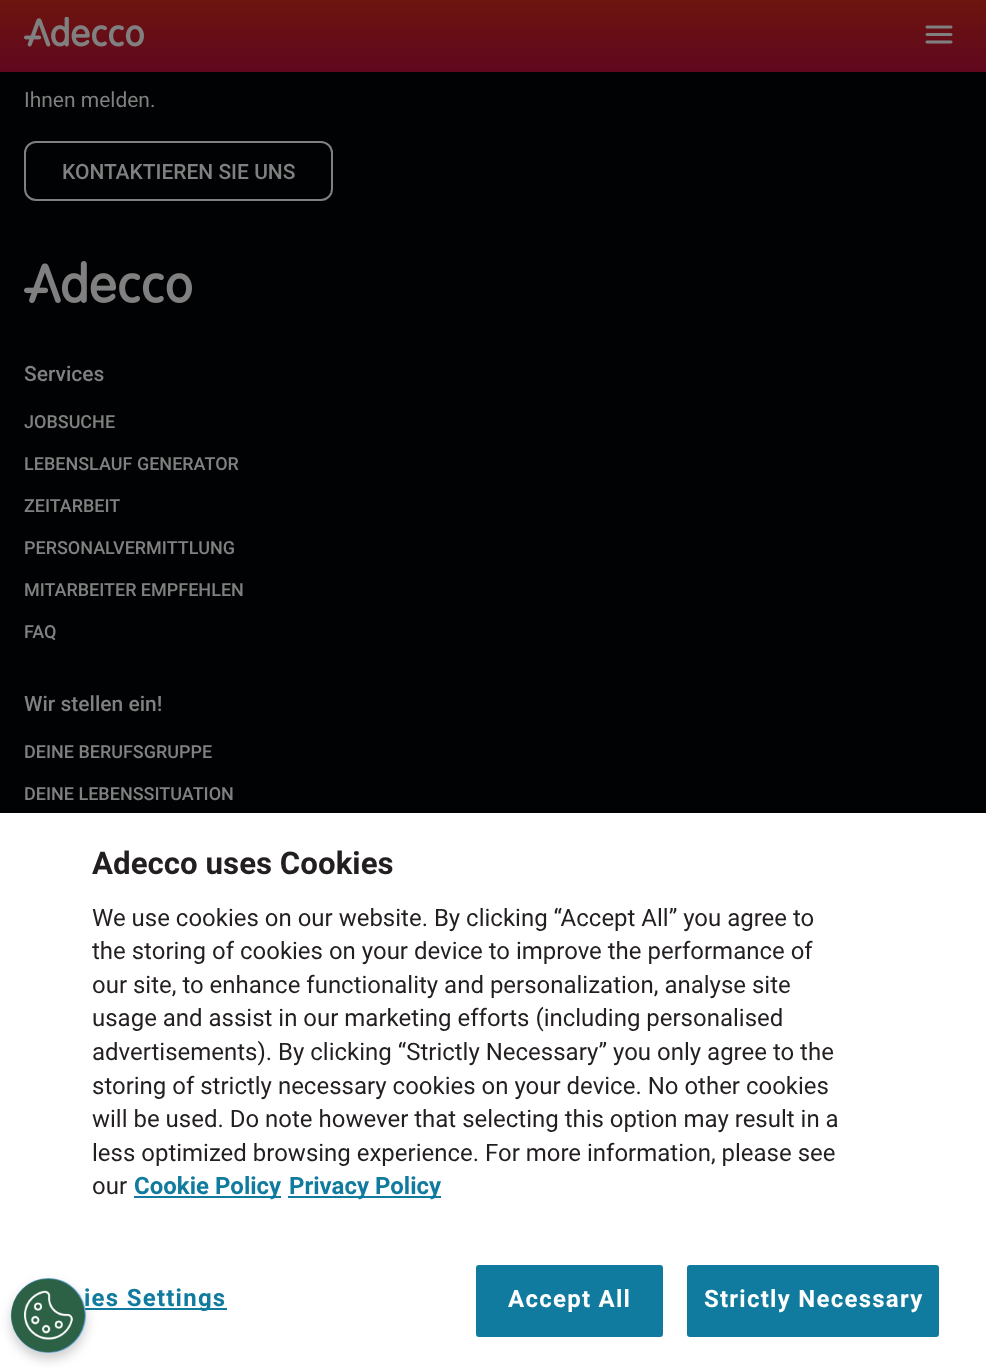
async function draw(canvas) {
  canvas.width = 986;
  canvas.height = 1368;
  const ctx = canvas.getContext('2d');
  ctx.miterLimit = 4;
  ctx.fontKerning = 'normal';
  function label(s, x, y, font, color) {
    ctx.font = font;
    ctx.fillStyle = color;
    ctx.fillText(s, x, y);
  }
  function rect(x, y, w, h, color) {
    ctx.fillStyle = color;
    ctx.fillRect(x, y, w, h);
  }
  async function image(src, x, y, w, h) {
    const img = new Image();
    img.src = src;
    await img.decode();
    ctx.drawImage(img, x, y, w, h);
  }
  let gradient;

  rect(0, 0, 986, 1368, '#000203');
  gradient = ctx.createLinearGradient(494, 0, 494, 72);
  gradient.addColorStop(0, '#6d150e');
  gradient.addColorStop(1, '#60071f');
  ctx.fillStyle = gradient;
  ctx.fillRect(0, 0, 986, 72);
  await image('assets/img1.png', 24, 17, 120, 30);
  await image('assets/img2.png', 925, 25, 28, 19);
  label('Ihnen melden.', 24, 107, '21px Roboto', '#808080');
  ctx.beginPath();
  ctx.roundRect(25, 142, 307, 58, 11);
  ctx.strokeStyle = '#808080';
  ctx.lineWidth = 2;
  ctx.stroke();
  label('KONTAKTIEREN SIE UNS', 62, 179, '500 21px Roboto', '#808080');
  await image('assets/img3.png', 24, 261, 168, 42);
  label('Services', 24, 381, '500 21px Roboto', '#808080');
  label('JOBSUCHE', 24, 428, '500 18px Roboto', '#808080');
  label('LEBENSLAUF GENERATOR', 24, 470, '500 18px Roboto', '#808080');
  label('ZEITARBEIT', 24, 512, '500 18px Roboto', '#808080');
  label('PERSONALVERMITTLUNG', 24, 554, '500 18px Roboto', '#808080');
  label('MITARBEITER EMPFEHLEN', 24, 596, '500 18px Roboto', '#808080');
  label('FAQ', 24, 638, '500 18px Roboto', '#808080');
  label('Wir stellen ein!', 24, 711, '500 21px Roboto', '#808080');
  label('DEINE BERUFSGRUPPE', 24, 758, '500 18px Roboto', '#808080');
  label('DEINE LEBENSSITUATION', 24, 800, '500 18px Roboto', '#808080');
  rect(0, 813, 986, 555, '#fff');
  rect(85, 1308, 142, 2, '#107b9e');
  ctx.fillStyle = '#00000033';
  ctx.filter = 'blur(6px)';
  ctx.beginPath();
  ctx.roundRect(11, 1284, 75, 75, 37.5);
  ctx.fill();
  ctx.filter = 'none';
  ctx.letterSpacing = '1.25px';
  label('ies Settings', 84, 1306, 'bold 24px Roboto', '#107b9e');
  ctx.fillStyle = '#6aaae4';
  ctx.beginPath();
  ctx.arc(48.5, 1315.5, 37.5, 0, 2 * Math.PI);
  ctx.fill();
  await image('assets/img4.png', 11, 1278, 74, 75);
  ctx.letterSpacing = '0px';
  label('Adecco uses Cookies', 92, 874, 'bold 31.25px Roboto', '#231f20');
  label('We use cookies on our website. By clicking “Accept All” you agree to', 92, 926, '24px Roboto', '#231f20');
  label('the storing of cookies on your device to improve the performance of', 92, 959, '24px Roboto', '#231f20');
  label('our site, to enhance functionality and personalization, analyse site', 92, 993, '24px Roboto', '#231f20');
  label('usage and assist in our marketing efforts (including personalised', 92, 1026, '24px Roboto', '#231f20');
  label('advertisements). By clicking “Strictly Necessary” you only agree to the', 92, 1060, '24px Roboto', '#231f20');
  label('storing of strictly necessary cookies on your device. No other cookies', 92, 1094, '24px Roboto', '#231f20');
  label('will be used. Do note however that selecting this option may result in a', 92, 1127, '24px Roboto', '#231f20');
  label('less optimized browsing experience. For more information, please see', 92, 1161, '24px Roboto', '#231f20');
  label('our', 92, 1194, '24px Roboto', '#231f20');
  rect(134, 1196, 147, 2, '#107b9e');
  label('Cookie Policy', 134, 1194, 'bold 24px Roboto', '#107b9e');
  rect(288, 1196, 153, 2, '#107b9e');
  label('Privacy Policy', 289, 1194, 'bold 24px Roboto', '#107b9e');
  ctx.beginPath();
  ctx.roundRect(477, 1266, 185, 70, 2);
  ctx.fill();
  ctx.strokeStyle = '#107b9e';
  ctx.stroke();
  ctx.letterSpacing = '1.25px';
  label('Accept All', 508, 1307, 'bold 24px Roboto', '#fff');
  ctx.fillStyle = '#107b9e';
  ctx.beginPath();
  ctx.roundRect(688, 1266, 250, 70, 2);
  ctx.fill();
  ctx.stroke();
  label('Strictly Necessary', 704, 1307, 'bold 24px Roboto', '#fff');
}

draw(document.querySelector('canvas'));
